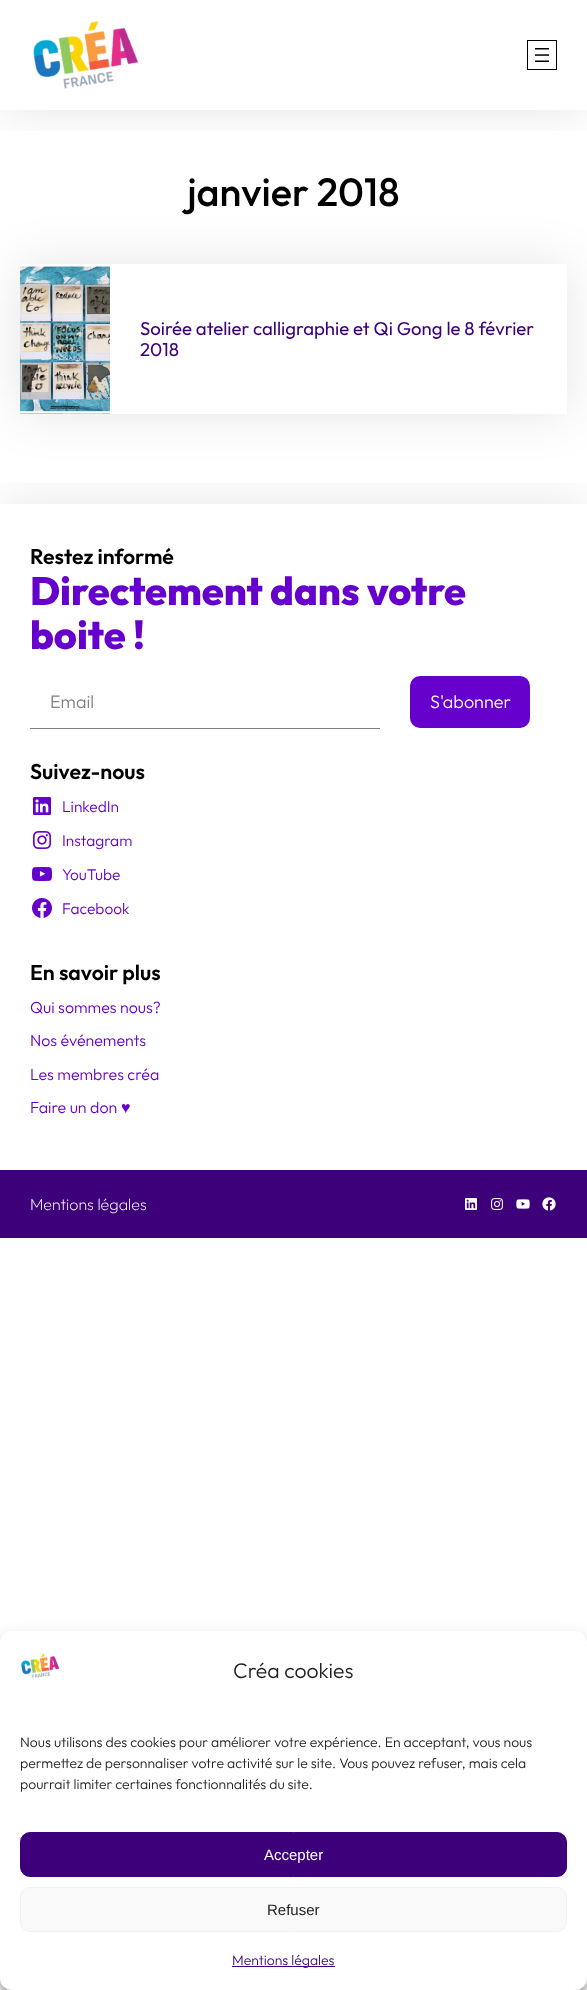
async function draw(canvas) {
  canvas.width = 587;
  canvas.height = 1990;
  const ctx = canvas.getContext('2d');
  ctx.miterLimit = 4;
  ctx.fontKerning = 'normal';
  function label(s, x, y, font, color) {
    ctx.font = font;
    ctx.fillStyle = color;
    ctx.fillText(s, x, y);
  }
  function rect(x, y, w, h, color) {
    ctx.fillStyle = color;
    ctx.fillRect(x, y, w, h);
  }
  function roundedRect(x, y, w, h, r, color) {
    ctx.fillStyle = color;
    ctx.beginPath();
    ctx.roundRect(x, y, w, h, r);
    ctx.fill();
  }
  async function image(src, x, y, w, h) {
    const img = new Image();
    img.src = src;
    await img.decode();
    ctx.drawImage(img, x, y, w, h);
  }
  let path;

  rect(0, 0, 587, 1990, '#fff');
  ctx.save();
  ctx.beginPath();
  ctx.rect(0, 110, 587, 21);
  ctx.clip();
  ctx.fillStyle = '#0a0a0a1a';
  ctx.filter = 'blur(25px)';
  ctx.beginPath();
  ctx.rect(0, 0, 587, 110);
  ctx.fill();
  ctx.filter = 'none';
  ctx.restore();
  await image('assets/img1.png', 33, 21, 106, 68);
  ctx.strokeStyle = '#000';
  ctx.strokeRect(527.5, 40.5, 29, 29);
  await image('assets/img2.png', 535, 48, 14, 14);
  ctx.save();
  path = new Path2D('M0 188H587V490H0ZM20 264H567V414H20Z');
  ctx.clip(path, 'evenodd');
  ctx.fillStyle = '#0a0a0a1a';
  ctx.filter = 'blur(25px)';
  ctx.beginPath();
  ctx.rect(20, 264, 547, 150);
  ctx.fill();
  ctx.filter = 'none';
  ctx.restore();
  label('janvier 2018', 187, 206, '500 39.6px Outfit', '#000');
  await image('assets/img3.png', 20, 266, 90, 148);
  label('Soirée atelier calligraphie et Qi Gong le 8 février', 140, 335, '18.6px Outfit', '#3d007a');
  label('2018', 140, 356, '18.6px Outfit', '#3d007a');
  ctx.save();
  ctx.beginPath();
  ctx.rect(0, 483, 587, 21);
  ctx.clip();
  ctx.fillStyle = '#0a0a0a1a';
  ctx.filter = 'blur(25px)';
  ctx.beginPath();
  ctx.rect(0, 504, 587, 666);
  ctx.fill();
  ctx.filter = 'none';
  ctx.restore();
  label('Restez informé', 30, 564, '600 21.25px Outfit', '#000');
  label('Directement dans votre', 30, 605, '800 39.6px Outfit', '#60c');
  label('boite !', 30, 649, '800 39.6px Outfit', '#60c');
  rect(30, 728, 350, 1, '#808080');
  label('Email', 50, 708, '300 18px Outfit', '#808080');
  roundedRect(410, 676, 120, 52, 10, '#60c');
  label('S\'abonner', 430, 708, '300 18px Outfit', '#fff');
  label('Suivez-nous', 30, 779, '600 21.25px Outfit', '#000');
  await image('assets/img4.png', 33, 797, 18, 18);
  label('LinkedIn', 62, 812, '300 15.5px Outfit', '#60c');
  await image('assets/img5.png', 33, 831, 18, 18);
  label('Instagram', 62, 846, '300 15.5px Outfit', '#60c');
  await image('assets/img6.png', 32, 867, 20, 14);
  label('YouTube', 62, 880, '300 15.5px Outfit', '#60c');
  await image('assets/img7.png', 32, 898, 20, 20);
  label('Facebook', 62, 914, '300 15.5px Outfit', '#60c');
  label('En savoir plus', 30, 980, '600 21.25px Outfit', '#000');
  label('Qui sommes nous?', 30, 1013, '300 16px Outfit', '#60c');
  label('Nos événements', 30, 1046, '300 16px Outfit', '#60c');
  label('Les membres créa', 30, 1080, '300 16px Outfit', '#60c');
  label('Faire un don', 30, 1113, '300 16px Outfit', '#60c');
  label('♥', 121, 1113, '16px Liberation Sans', '#60c');
  rect(0, 1170, 587, 68, '#3d007a');
  label('Mentions légales', 30, 1210, '200 16px Outfit', '#fff');
  await image('assets/img8.png', 465, 1198, 12, 12);
  await image('assets/img9.png', 491, 1198, 12, 12);
  await image('assets/img10.png', 516, 1199, 14, 10);
  await image('assets/img11.png', 542, 1197, 14, 14);
  ctx.fillStyle = '#0000003b';
  ctx.filter = 'blur(3px)';
  ctx.beginPath();
  ctx.roundRect(0, 1637, 587, 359, 12);
  ctx.fill();
  ctx.filter = 'none';
  ctx.fillStyle = '#00000030';
  ctx.filter = 'blur(10px)';
  ctx.beginPath();
  ctx.roundRect(0, 1641, 587, 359, 12);
  ctx.fill();
  ctx.filter = 'none';
  roundedRect(0, 1631, 587, 359, 12, '#fff');
  await image('assets/img12.png', 21, 1653, 39, 26);
  label('Créa cookies', 233, 1678, '300 21.25px Outfit', '#222');
  label('Nous utilisons des cookies pour améliorer votre expérience. En acceptant, vous nous', 20, 1747, '300 14px Outfit', '#222');
  label('permettez de personnaliser votre activité sur le site. Vous pouvez refuser, mais cela', 20, 1768, '300 14px Outfit', '#222');
  label('pourrait limiter certaines fonctionnalités du site.', 20, 1789, '300 14px Outfit', '#222');
  ctx.fillStyle = '#3d007a';
  ctx.beginPath();
  ctx.roundRect(20.5, 1832.5, 546, 44, 9.5);
  ctx.fill();
  ctx.strokeStyle = '#3d007a';
  ctx.stroke();
  label('Accepter', 264, 1860, '15px Liberation Sans', '#fff');
  ctx.fillStyle = '#f9f9f9';
  ctx.beginPath();
  ctx.roundRect(20.5, 1887.5, 546, 44, 9.5);
  ctx.fill();
  ctx.strokeStyle = '#f2f2f2';
  ctx.stroke();
  label('Refuser', 267, 1915, '15px Liberation Sans', '#222');
  rect(232, 1966, 103, 1, '#3d007a');
  label('Mentions légales', 232, 1965, '300 14px Outfit', '#3d007a');
}

draw(document.querySelector('canvas'));
